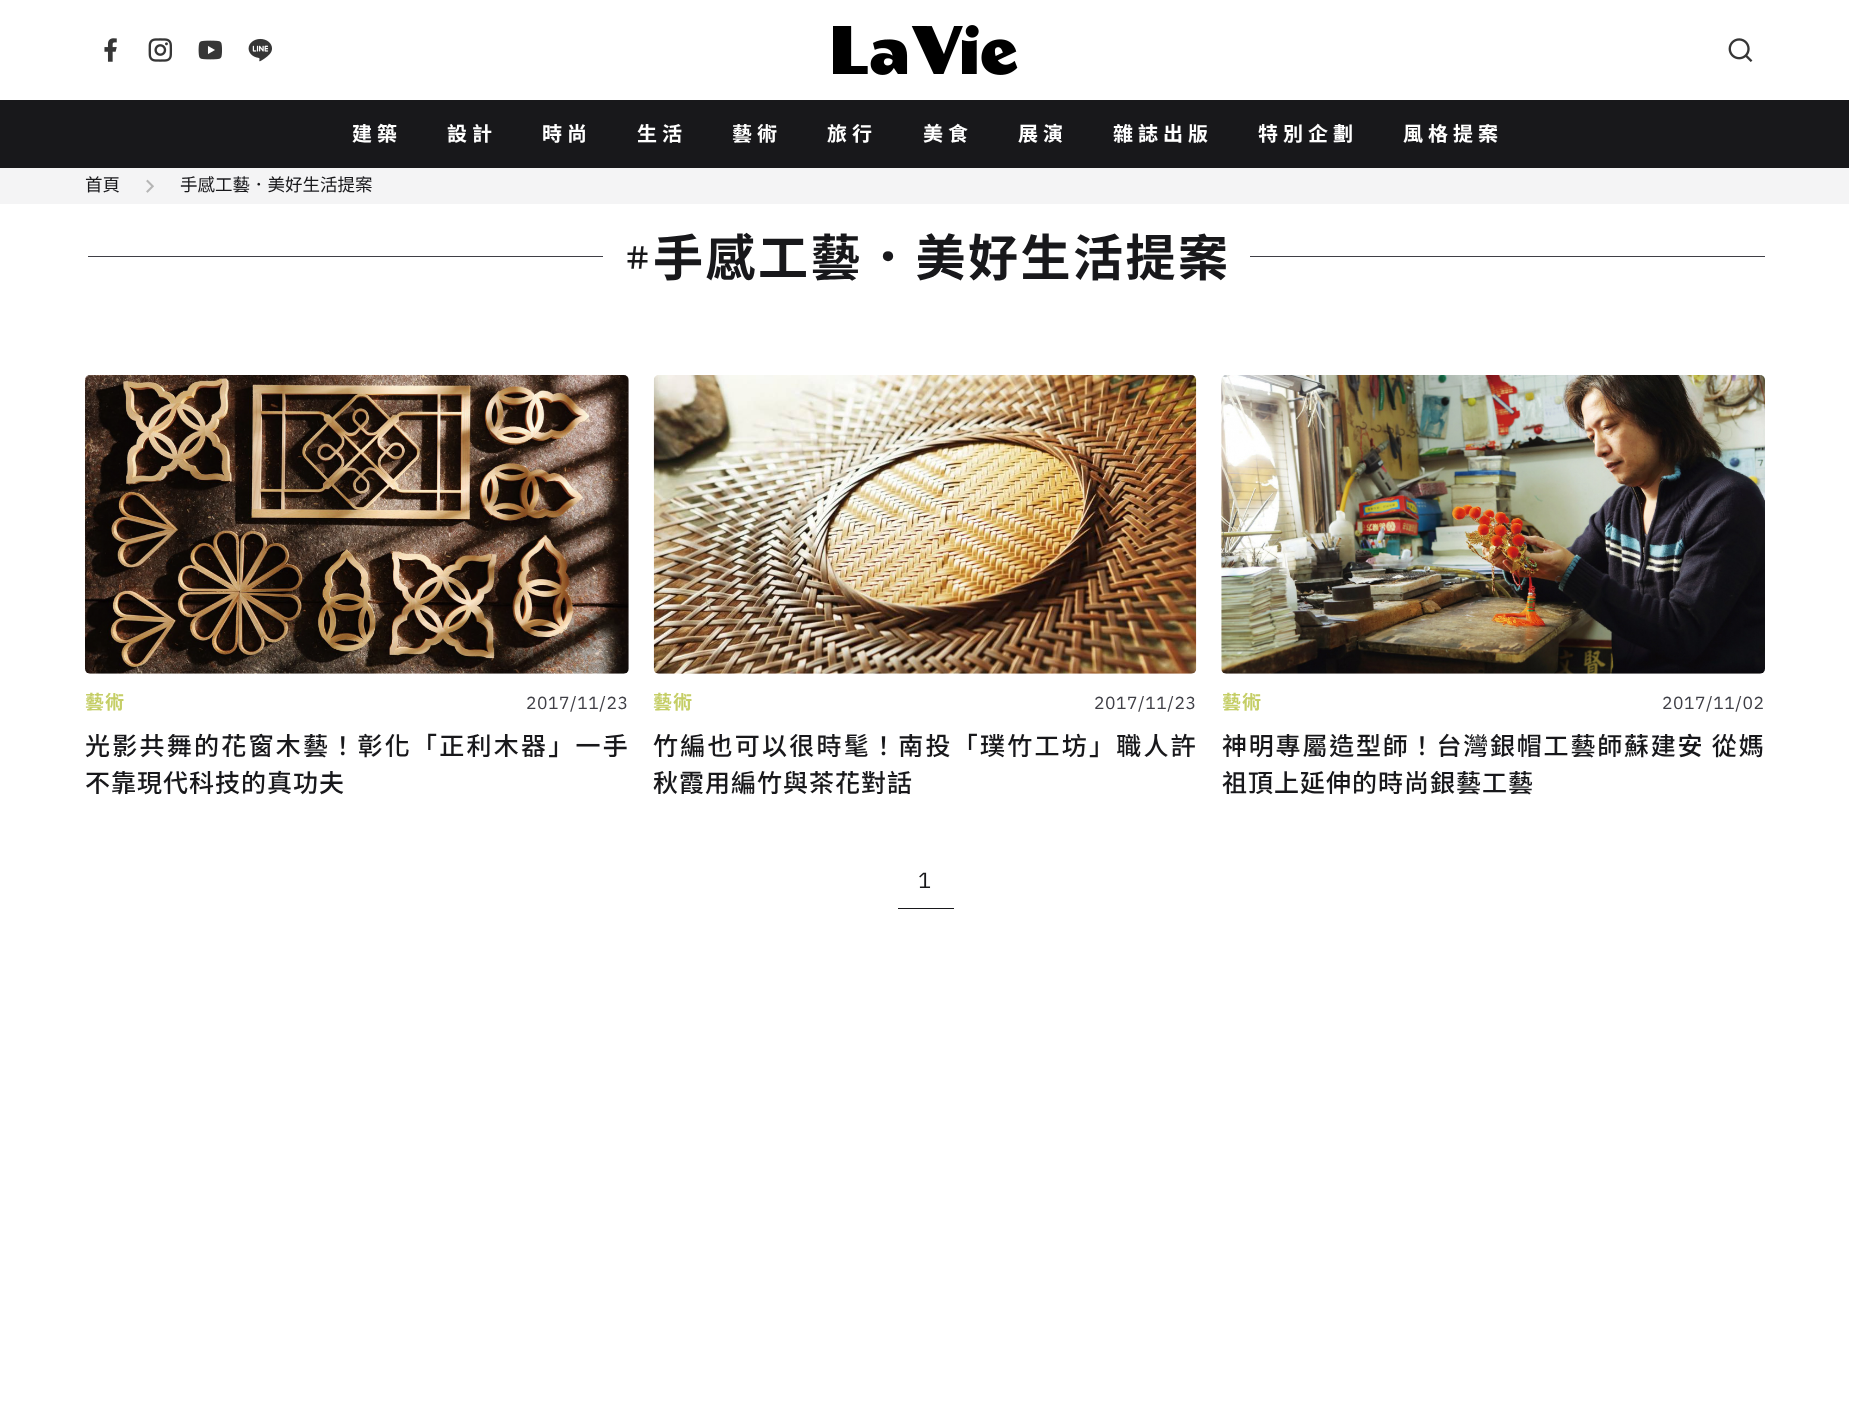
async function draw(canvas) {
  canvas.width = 1849;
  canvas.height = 1418;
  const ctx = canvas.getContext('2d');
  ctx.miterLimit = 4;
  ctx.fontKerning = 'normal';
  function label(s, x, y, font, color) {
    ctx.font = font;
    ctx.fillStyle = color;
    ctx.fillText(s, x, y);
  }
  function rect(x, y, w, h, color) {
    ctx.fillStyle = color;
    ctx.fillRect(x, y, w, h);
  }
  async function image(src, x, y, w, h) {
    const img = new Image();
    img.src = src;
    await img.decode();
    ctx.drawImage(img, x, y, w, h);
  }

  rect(0, 0, 1849, 1418, '#fff');
  await image('assets/img1.png', 104, 38, 13, 24);
  await image('assets/img2.png', 148, 38, 25, 24);
  await image('assets/img3.png', 198, 40, 24, 20);
  await image('assets/img4.png', 248, 38, 24, 24);
  await image('assets/img5.png', 833, 25, 185, 50);
  await image('assets/img6.png', 1728, 38, 25, 24);
  rect(0, 100, 1849, 68, '#18181b');
  ctx.letterSpacing = '5px';
  label('建築', 352, 141, 'bold 20px Noto Sans TC', '#fff');
  label('設計', 447, 141, 'bold 20px Noto Sans TC', '#fff');
  label('時尚', 542, 141, 'bold 20px Noto Sans TC', '#fff');
  label('生活', 637, 141, 'bold 20px Noto Sans TC', '#fff');
  label('藝術', 732, 141, 'bold 20px Noto Sans TC', '#fff');
  label('旅行', 827, 141, 'bold 20px Noto Sans TC', '#fff');
  label('美食', 923, 141, 'bold 20px Noto Sans TC', '#fff');
  label('展演', 1018, 141, 'bold 20px Noto Sans TC', '#fff');
  label('雜誌出版', 1113, 141, 'bold 20px Noto Sans TC', '#fff');
  label('特別企劃', 1258, 141, 'bold 20px Noto Sans TC', '#fff');
  label('風格提案', 1403, 141, 'bold 20px Noto Sans TC', '#fff');
  rect(0, 168, 1849, 36, '#f4f4f5');
  ctx.letterSpacing = '0px';
  label('首頁', 85, 191, '17.5px Noto Sans TC', '#18181b');
  await image('assets/img7.png', 146, 179, 8, 14);
  label('手感工藝．美好生活提案', 180, 191, '17.5px Noto Sans TC', '#18181b');
  rect(88, 256, 515, 1, '#3f3f46');
  await image('assets/img8.png', 627, 246, 21, 23);
  ctx.letterSpacing = '2.5px';
  label('手感工藝．美好生活提案', 653, 276, 'bold 50px Noto Sans TC', '#18181b');
  rect(1250, 256, 515, 1, '#3f3f46');
  await image('assets/img9.png', 85, 375, 544, 299);
  ctx.letterSpacing = '1px';
  label('藝術', 85, 709, 'bold 19px Noto Sans TC', '#c5ce66');
  ctx.letterSpacing = '0.5px';
  label('2017/11/23', 526, 709, '17.5px IBM Plex Sans', '#3f3f46');
  ctx.letterSpacing = '2.25px';
  label('光影共舞的花窗木藝！彰化「正利木器」一手', 85, 755, '500 25px Noto Sans TC', '#18181b');
  ctx.letterSpacing = '1px';
  label('不靠現代科技的真功夫', 85, 792, '500 25px Noto Sans TC', '#18181b');
  await image('assets/img10.png', 653, 375, 544, 299);
  label('藝術', 653, 709, 'bold 19px Noto Sans TC', '#c5ce66');
  ctx.letterSpacing = '0.5px';
  label('2017/11/23', 1094, 709, '17.5px IBM Plex Sans', '#3f3f46');
  ctx.letterSpacing = '2.25px';
  label('竹編也可以很時髦！南投「璞竹工坊」職人許', 653, 755, '500 25px Noto Sans TC', '#18181b');
  ctx.letterSpacing = '1px';
  label('秋霞用編竹與茶花對話', 653, 792, '500 25px Noto Sans TC', '#18181b');
  await image('assets/img11.png', 1221, 375, 544, 299);
  label('藝術', 1222, 709, 'bold 19px Noto Sans TC', '#c5ce66');
  ctx.letterSpacing = '0.5px';
  label('2017/11/02', 1662, 709, '17.5px IBM Plex Sans', '#3f3f46');
  ctx.letterSpacing = '1.8px';
  label('神明專屬造型師！台灣銀帽工藝師蘇建安 從媽', 1222, 755, '500 25px Noto Sans TC', '#18181b');
  ctx.letterSpacing = '1px';
  label('祖頂上延伸的時尚銀藝工藝', 1222, 792, '500 25px Noto Sans TC', '#18181b');
  rect(898, 908, 56, 1, '#18181b');
  ctx.letterSpacing = '0px';
  label('1', 918, 888, '22px IBM Plex Sans', '#18181b');
}

draw(document.querySelector('canvas'));
